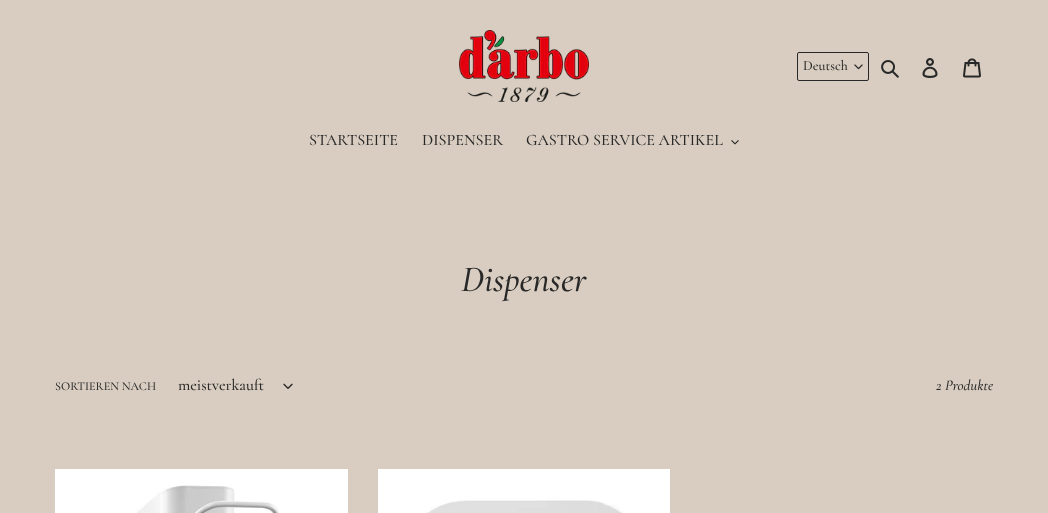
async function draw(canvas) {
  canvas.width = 1048;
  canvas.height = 513;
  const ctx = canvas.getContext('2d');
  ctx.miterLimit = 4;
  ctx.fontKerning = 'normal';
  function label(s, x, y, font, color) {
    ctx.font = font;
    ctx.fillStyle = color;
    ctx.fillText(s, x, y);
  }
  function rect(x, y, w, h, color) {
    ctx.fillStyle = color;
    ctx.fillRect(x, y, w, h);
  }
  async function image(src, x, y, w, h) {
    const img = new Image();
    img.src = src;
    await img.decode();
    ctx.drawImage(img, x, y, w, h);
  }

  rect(0, 0, 1048, 513, '#d8cdc0');
  await image('assets/img1.png', 459, 30, 130, 72);
  await image('assets/img2.png', 854, 64, 9, 6);
  ctx.beginPath();
  ctx.roundRect(797.5, 52.5, 71, 28, 1.5);
  ctx.strokeStyle = '#282828';
  ctx.stroke();
  label('Deutsch', 803, 70, '500 14px Cormorant', '#282828');
  await image('assets/img3.png', 881, 60, 18, 18);
  await image('assets/img4.png', 922, 58, 16, 20);
  await image('assets/img5.png', 963, 58, 18, 20);
  label('STARTSEITE', 309, 145, '500 16px Cormorant', '#282828');
  label('DISPENSER', 422, 145, '500 16px Cormorant', '#282828');
  label('GASTRO SERVICE ARTIKEL', 526, 145, '500 16px Cormorant', '#282828');
  await image('assets/img6.png', 731, 140, 8, 5);
  label('Dispenser', 461, 291, 'italic 500 37px Cormorant', '#282828');
  label('SORTIEREN NACH', 55, 390, '500 12px Cormorant', '#282828');
  label('meistverkauft', 178, 390, '500 16px Cormorant', '#282828');
  await image('assets/img7.png', 283, 383, 10, 6);
  label('2 Produkte', 936, 390, 'italic 500 15px Cormorant', '#282828');
  await image('assets/img8.png', 55, 469, 293, 44);
  await image('assets/img9.png', 378, 469, 292, 44);
}

draw(document.querySelector('canvas'));
